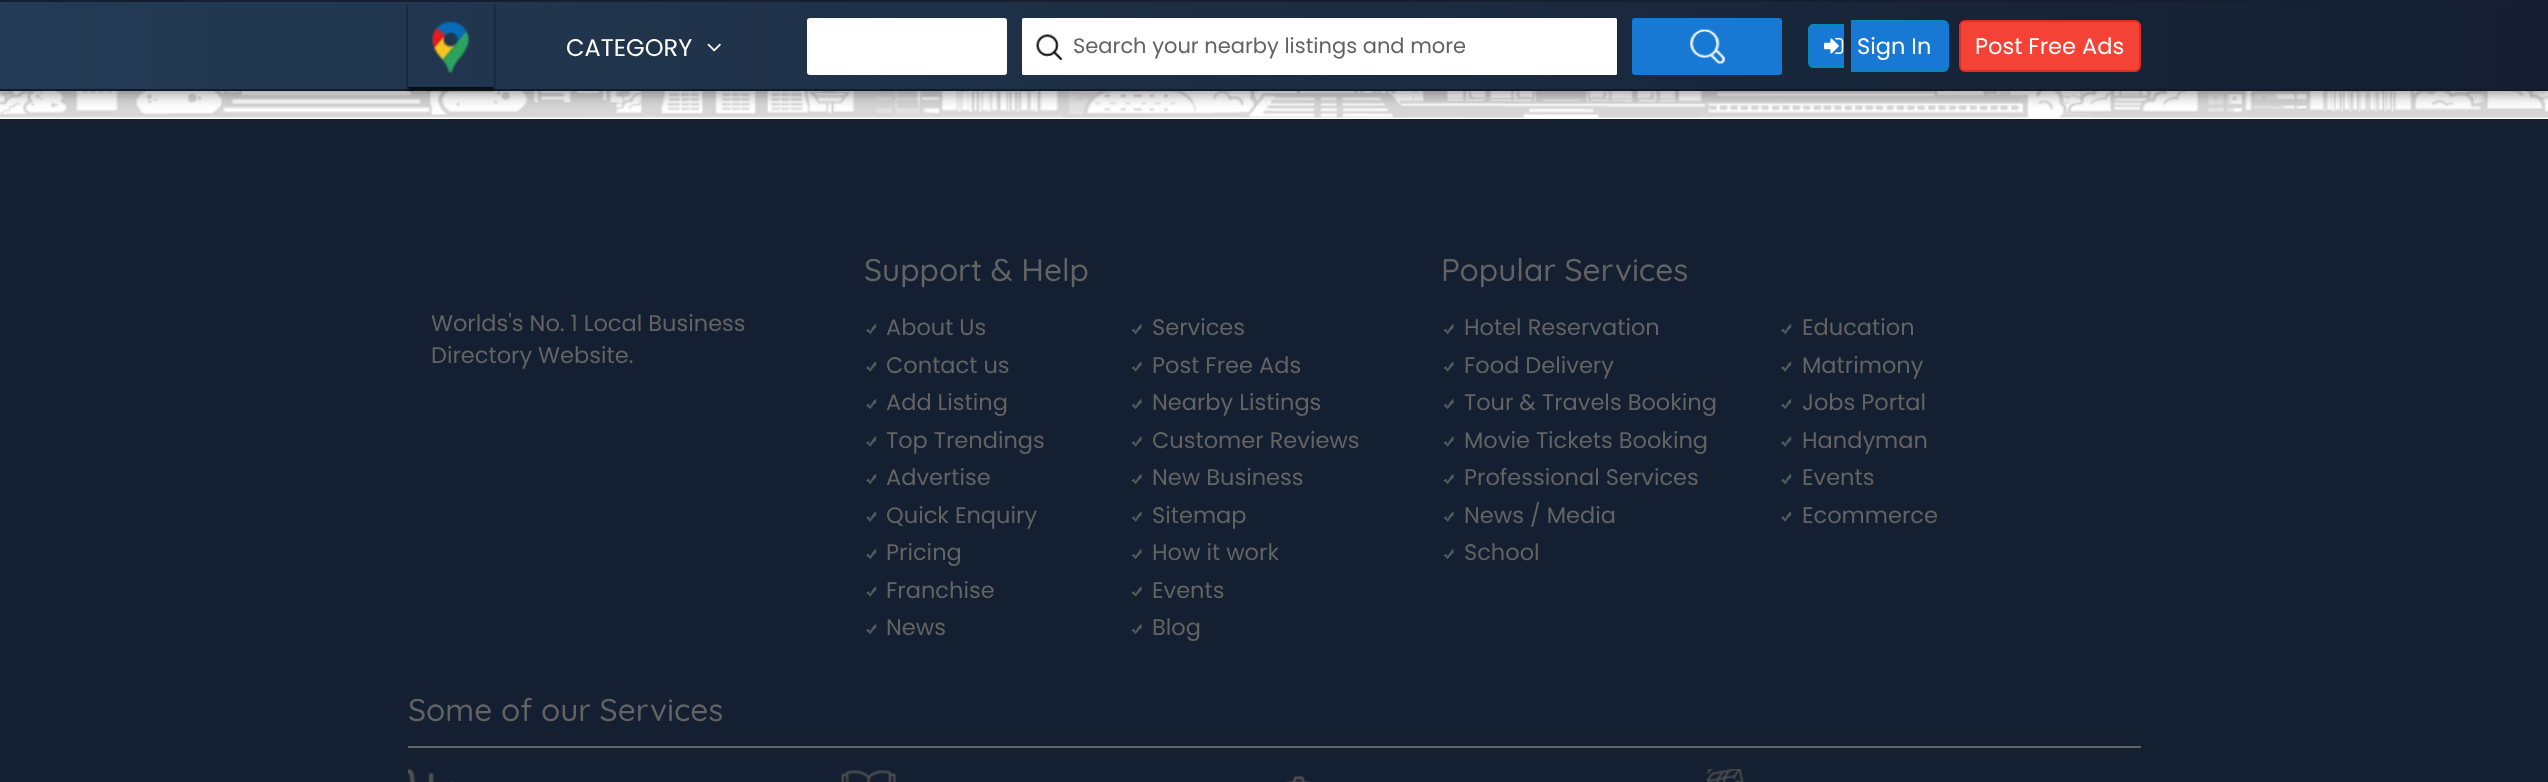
async function draw(canvas) {
  canvas.width = 2548;
  canvas.height = 782;
  const ctx = canvas.getContext('2d');
  ctx.miterLimit = 4;
  ctx.fontKerning = 'normal';
  function label(s, x, y, font, color) {
    ctx.font = font;
    ctx.fillStyle = color;
    ctx.fillText(s, x, y);
  }
  function rect(x, y, w, h, color) {
    ctx.fillStyle = color;
    ctx.fillRect(x, y, w, h);
  }
  function roundedRect(x, y, w, h, r, color) {
    ctx.fillStyle = color;
    ctx.beginPath();
    ctx.roundRect(x, y, w, h, r);
    ctx.fill();
  }
  async function image(src, x, y, w, h) {
    const img = new Image();
    img.src = src;
    await img.decode();
    ctx.drawImage(img, x, y, w, h);
  }
  let gradient, path;

  rect(0, 0, 2548, 782, '#fff');
  await image('assets/img6.png', 0, 91, 2548, 27);
  gradient = ctx.createLinearGradient(1274, 119, 1274, -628);
  gradient.addColorStop(0, '#ffffffad');
  gradient.addColorStop(1, '#ffffffcc');
  ctx.fillStyle = gradient;
  ctx.fillRect(0, 91, 2548, 27);
  ctx.fillStyle = '#00000078';
  ctx.filter = 'blur(7.5px)';
  ctx.beginPath();
  ctx.rect(-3, -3, 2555, 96);
  ctx.fill();
  ctx.filter = 'none';
  gradient = ctx.createLinearGradient(0, 45, 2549, 45);
  gradient.addColorStop(0, '#243b55');
  gradient.addColorStop(1, '#141e30');
  ctx.fillStyle = gradient;
  ctx.fillRect(0, 2, 2548, 87);
  rect(0, 0, 2548, 2, '#151f31');
  rect(0, 89, 2548, 2, '#111a29');
  ctx.save();
  path = new Path2D('M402 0H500V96H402ZM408 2H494V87H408Z');
  ctx.clip(path, 'evenodd');
  ctx.fillStyle = '#000000cc';
  ctx.filter = 'blur(1.5px)';
  ctx.beginPath();
  ctx.rect(408, 5, 86, 85);
  ctx.fill();
  ctx.filter = 'none';
  ctx.restore();
  await image('assets/img1.png', 431, 21, 39, 53);
  rect(753, 2, 2, 87, '#273244');
  rect(546, 2, 2, 87, '#273244');
  label('CATEGORY', 566, 56, '24px Poppins', '#fff');
  await image('assets/img2.png', 707, 43, 14, 9);
  roundedRect(807, 18, 200, 57, 3, '#fff');
  roundedRect(1022, 18, 595, 57, 1.5, '#fff');
  await image('assets/img3.png', 1036, 34, 26, 26);
  label('Search your nearby listings and more', 1073, 53, '21px Poppins', '#636363');
  roundedRect(1632, 18, 150, 57, 3, '#1779d3');
  await image('assets/img4.png', 1690, 29, 35, 35);
  ctx.beginPath();
  ctx.roundRect(1808, 24, 36, 44, [6, 0, 0, 6]);
  ctx.fill();
  ctx.fillStyle = '#058ab9';
  path = new Path2D('M1814 24H1844V68H1814C1810 68 1808 65 1808 62V30C1808 27 1810 24 1814 24ZM1814 26H1844V66H1814C1811 66 1809 64 1809 62V30C1809 28 1811 26 1814 26Z');
  ctx.fill(path, 'evenodd');
  ctx.fillStyle = '#1779d3';
  ctx.beginPath();
  ctx.roundRect(1851, 20, 98, 52, [0, 6, 6, 0]);
  ctx.fill();
  ctx.fillStyle = '#058ab9';
  path = new Path2D('M1851 20H1942C1946 20 1948 22 1948 26V66C1948 69 1946 72 1942 72H1851ZM1851 21H1942C1945 21 1947 23 1947 26V66C1947 68 1945 70 1942 70H1851Z');
  ctx.fill(path, 'evenodd');
  await image('assets/img5.png', 1824, 37, 20, 17);
  label('Sign In', 1857, 54, '22.5px Poppins', '#fff');
  ctx.fillStyle = '#f44336';
  ctx.beginPath();
  ctx.roundRect(1960, 21, 180, 50, 5);
  ctx.fill();
  ctx.strokeStyle = '#dc2e21';
  ctx.lineWidth = 2;
  ctx.stroke();
  label('Post Free Ads', 1975, 54, '22.5px Poppins', '#fff');
  rect(0, 119, 2548, 663, '#141f31');
  label('Worlds\'s No. 1 Local Business', 431, 331, '22.5px Poppins', '#636363');
  label('Directory Website.', 431, 363, '22.5px Poppins', '#636363');
  label('Support & Help', 864, 281, '500 31.5px Quicksand', '#636363');
  await image('assets/img7.png', 866, 324, 11, 11);
  label('About Us', 886, 335, '22.5px Poppins', '#636363');
  await image('assets/img8.png', 1131, 324, 11, 11);
  label('Services', 1152, 335, '22.5px Poppins', '#636363');
  await image('assets/img9.png', 866, 361, 11, 11);
  label('Contact us', 886, 373, '22.5px Poppins', '#636363');
  await image('assets/img10.png', 1131, 361, 11, 11);
  label('Post Free Ads', 1152, 373, '22.5px Poppins', '#636363');
  await image('assets/img7.png', 866, 399, 11, 11);
  label('Add Listing', 886, 410, '22.5px Poppins', '#636363');
  await image('assets/img8.png', 1131, 399, 11, 11);
  label('Nearby Listings', 1152, 410, '22.5px Poppins', '#636363');
  await image('assets/img9.png', 866, 436, 11, 11);
  label('Top Trendings', 886, 448, '22.5px Poppins', '#636363');
  await image('assets/img10.png', 1131, 436, 11, 11);
  label('Customer Reviews', 1152, 448, '22.5px Poppins', '#636363');
  await image('assets/img7.png', 866, 474, 11, 11);
  label('Advertise', 886, 485, '22.5px Poppins', '#636363');
  await image('assets/img8.png', 1131, 474, 11, 11);
  label('New Business', 1152, 485, '22.5px Poppins', '#636363');
  await image('assets/img9.png', 866, 511, 11, 11);
  label('Quick Enquiry', 886, 523, '22.5px Poppins', '#636363');
  await image('assets/img10.png', 1131, 511, 11, 11);
  label('Sitemap', 1152, 523, '22.5px Poppins', '#636363');
  await image('assets/img7.png', 866, 549, 11, 11);
  label('Pricing', 886, 560, '22.5px Poppins', '#636363');
  await image('assets/img8.png', 1131, 549, 11, 11);
  label('How it work', 1152, 560, '22.5px Poppins', '#636363');
  await image('assets/img9.png', 866, 586, 11, 11);
  label('Franchise', 886, 598, '22.5px Poppins', '#636363');
  await image('assets/img10.png', 1131, 586, 11, 11);
  label('Events', 1152, 598, '22.5px Poppins', '#636363');
  await image('assets/img7.png', 866, 624, 11, 11);
  label('News', 886, 635, '22.5px Poppins', '#636363');
  await image('assets/img8.png', 1131, 624, 11, 11);
  label('Blog', 1152, 635, '22.5px Poppins', '#636363');
  label('Popular Services', 1441, 281, '500 31.5px Quicksand', '#636363');
  await image('assets/img8.png', 1443, 324, 11, 11);
  label('Hotel Reservation', 1464, 335, '22.5px Poppins', '#636363');
  await image('assets/img7.png', 1781, 324, 11, 11);
  label('Education', 1802, 335, '22.5px Poppins', '#636363');
  await image('assets/img10.png', 1443, 361, 11, 11);
  label('Food Delivery', 1464, 373, '22.5px Poppins', '#636363');
  await image('assets/img9.png', 1781, 361, 11, 11);
  label('Matrimony', 1802, 373, '22.5px Poppins', '#636363');
  await image('assets/img8.png', 1443, 399, 11, 11);
  label('Tour & Travels Booking', 1464, 410, '22.5px Poppins', '#636363');
  await image('assets/img7.png', 1781, 399, 11, 11);
  label('Jobs Portal', 1802, 410, '22.5px Poppins', '#636363');
  await image('assets/img10.png', 1443, 436, 11, 11);
  label('Movie Tickets Booking', 1464, 448, '22.5px Poppins', '#636363');
  await image('assets/img9.png', 1781, 436, 11, 11);
  label('Handyman', 1802, 448, '22.5px Poppins', '#636363');
  await image('assets/img8.png', 1443, 474, 11, 11);
  label('Professional Services', 1464, 485, '22.5px Poppins', '#636363');
  await image('assets/img7.png', 1781, 474, 11, 11);
  label('Events', 1802, 485, '22.5px Poppins', '#636363');
  await image('assets/img10.png', 1443, 511, 11, 11);
  label('News / Media', 1464, 523, '22.5px Poppins', '#636363');
  await image('assets/img9.png', 1781, 511, 11, 11);
  label('Ecommerce', 1802, 523, '22.5px Poppins', '#636363');
  await image('assets/img8.png', 1443, 549, 11, 11);
  label('School', 1464, 560, '22.5px Poppins', '#636363');
  rect(408, 746, 1733, 2, '#636363');
  label('Some of our Services', 408, 721, '500 31.5px Quicksand', '#636363');
  await image('assets/img11.png', 408, 769, 45, 13);
  await image('assets/img12.png', 841, 770, 55, 12);
  await image('assets/img13.png', 1286, 776, 24, 6);
  await image('assets/img14.png', 1707, 769, 37, 13);
}

draw(document.querySelector('canvas'));
